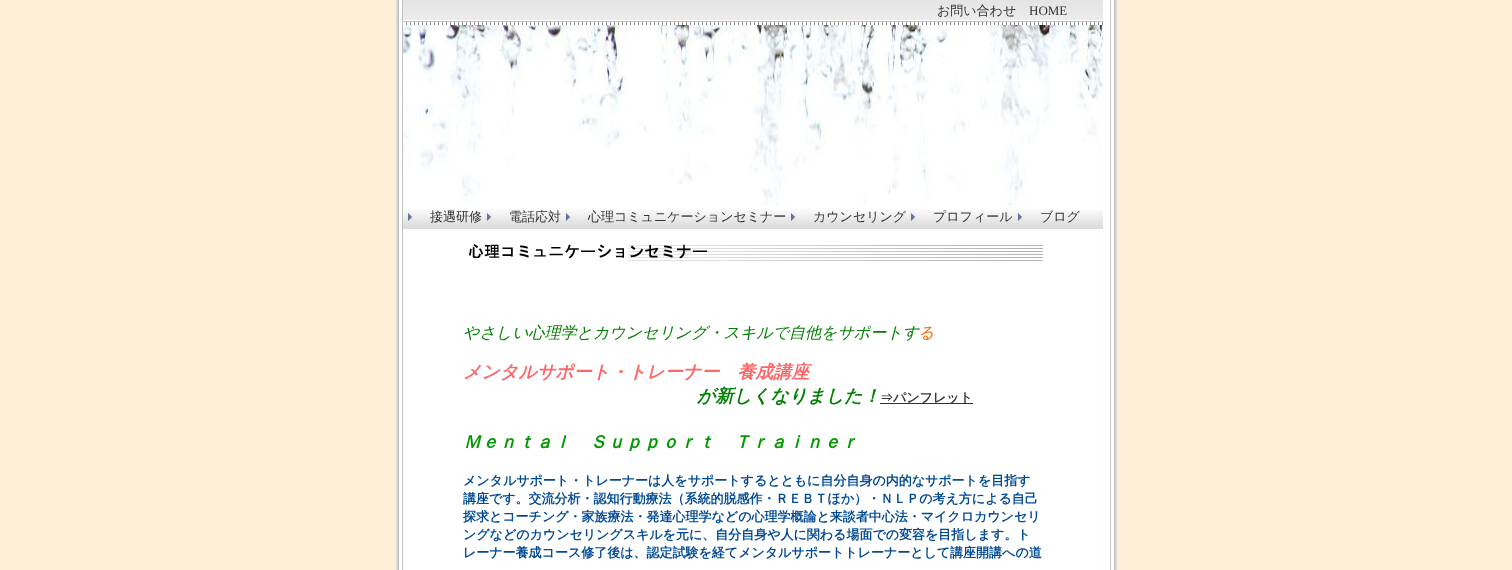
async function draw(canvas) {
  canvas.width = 1512;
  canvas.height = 570;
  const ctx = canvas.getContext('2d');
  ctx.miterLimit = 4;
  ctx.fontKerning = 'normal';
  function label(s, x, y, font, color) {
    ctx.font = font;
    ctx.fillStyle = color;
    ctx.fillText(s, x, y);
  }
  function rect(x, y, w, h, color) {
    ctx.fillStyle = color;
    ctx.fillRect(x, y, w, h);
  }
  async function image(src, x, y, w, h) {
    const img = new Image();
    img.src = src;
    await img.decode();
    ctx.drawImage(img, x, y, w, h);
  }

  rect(0, 0, 1512, 570, '#fef0d8');
  await image('assets/img1.png', 396, 0, 7, 570);
  rect(403, 0, 707, 570, '#fff');
  await image('assets/img2.png', 403, 0, 700, 22);
  label('お問い合わせ', 937, 15, '500 13px WenQuanYi Zen Hei', '#333');
  label('HOME', 1029, 15, '13px Liberation Serif', '#333');
  await image('assets/img3.png', 406, 22, 697, 1);
  await image('assets/img3.png', 406, 23, 697, 1);
  await image('assets/img3.png', 406, 24, 697, 1);
  await image('assets/img4.png', 403, 25, 700, 180);
  await image('assets/img5.png', 403, 210, 700, 19);
  await image('assets/img6.png', 406, 209, 8, 12);
  rect(417, 209, 10, 1, '#f9f9f9');
  await image('assets/img6.png', 485, 209, 8, 12);
  rect(496, 209, 10, 1, '#f9f9f9');
  label('電話応対', 509, 221, '500 13px WenQuanYi Zen Hei', '#333');
  await image('assets/img6.png', 564, 209, 8, 12);
  rect(575, 209, 10, 1, '#f9f9f9');
  await image('assets/img6.png', 789, 209, 8, 12);
  rect(800, 209, 10, 1, '#f9f9f9');
  await image('assets/img6.png', 909, 209, 8, 12);
  rect(920, 209, 10, 1, '#f9f9f9');
  await image('assets/img6.png', 1016, 209, 8, 12);
  rect(1027, 209, 10, 1, '#f9f9f9');
  label('接遇研修', 430, 221, '500 13px WenQuanYi Zen Hei', '#333');
  label('心理コミュニケーションセミナー', 588, 221, '500 13px WenQuanYi Zen Hei', '#333');
  label('カウンセリング', 813, 221, '500 13px WenQuanYi Zen Hei', '#333');
  label('プロフィール', 933, 221, '500 13px WenQuanYi Zen Hei', '#333');
  label('ブログ', 1040, 221, '500 13px WenQuanYi Zen Hei', '#333');
  await image('assets/img7.png', 469, 244, 574, 17);
  label('やさしい心理学とカウンセリング・スキルで自他をサポートす', 463, 338, 'italic 500 16px WenQuanYi Zen Hei', '#008000');
  label('る', 918, 338, 'italic 500 16px WenQuanYi Zen Hei', '#f60');
  label('メンタルサポート・トレーナー　養成講座', 463, 378, 'italic bold 18px WenQuanYi Zen Hei', '#f66');
  label('が新しくなりました！', 697, 402, 'italic bold 18px WenQuanYi Zen Hei', '#008000');
  rect(880, 403, 93, 1, '#333');
  label('⇒パンフレット', 880, 402, 'bold 13px WenQuanYi Zen Hei', '#333');
  label('Ｍｅｎｔａｌ　Ｓｕｐｐｏｒｔ　Ｔｒａｉｎｅｒ', 463, 448, 'italic bold 18px WenQuanYi Zen Hei', '#090');
  label('メンタルサポート・トレーナーは人をサポートするとともに自分自身の内的なサポートを目指す', 463, 485, 'bold 13px WenQuanYi Zen Hei', '#004993');
  label('講座です。交流分析・認知行動療法（系統的脱感作・ＲＥＢＴほか）・ＮＬＰの考え方による自己', 463, 503, 'bold 13px WenQuanYi Zen Hei', '#004993');
  label('探求とコーチング・家族療法・発達心理学などの心理学概論と来談者中心法・マイクロカウンセリ', 463, 521, 'bold 13px WenQuanYi Zen Hei', '#004993');
  label('ングなどのカウンセリングスキルを元に、自分自身や人に関わる場面での変容を目指します。ト', 463, 539, 'bold 13px WenQuanYi Zen Hei', '#004993');
  label('レーナー養成コース修了後は、認定試験を経てメンタルサポートトレーナーとして講座開講への道', 463, 557, 'bold 13px WenQuanYi Zen Hei', '#004993');
  await image('assets/img8.png', 1110, 0, 7, 570);
}

draw(document.querySelector('canvas'));
